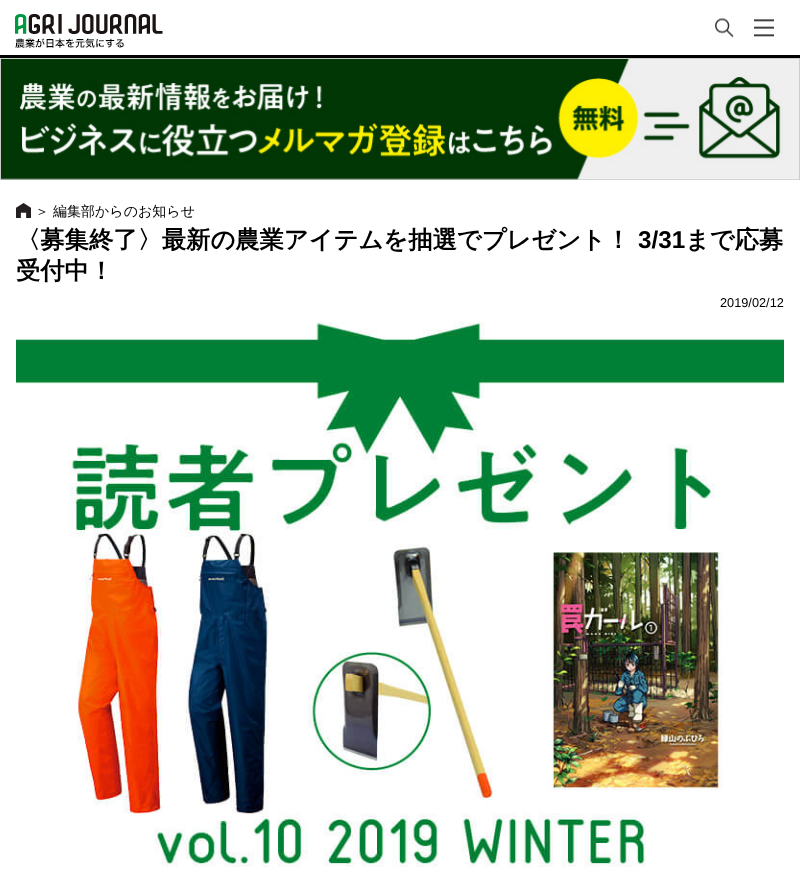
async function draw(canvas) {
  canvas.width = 800;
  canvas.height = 885;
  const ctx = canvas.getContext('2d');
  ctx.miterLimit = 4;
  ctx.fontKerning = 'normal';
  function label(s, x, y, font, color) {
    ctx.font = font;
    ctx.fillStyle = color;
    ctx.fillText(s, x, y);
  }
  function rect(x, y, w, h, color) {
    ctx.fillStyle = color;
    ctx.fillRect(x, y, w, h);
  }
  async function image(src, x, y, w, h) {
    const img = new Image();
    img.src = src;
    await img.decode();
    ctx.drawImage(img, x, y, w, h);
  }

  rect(0, 0, 800, 885, '#fff');
  rect(0, 55, 800, 3, '#000');
  await image('assets/img1.png', 15, 14, 148, 34);
  await image('assets/img2.png', 715, 18, 19, 20);
  await image('assets/img3.png', 754, 19, 20, 18);
  ctx.strokeStyle = '#ccc';
  ctx.strokeRect(0.5, 58.5, 799, 121);
  await image('assets/img4.png', 1, 59, 798, 121);
  await image('assets/img5.png', 16, 203, 15, 15);
  label('＞', 35, 216, '500 14px WenQuanYi Zen Hei', '#000');
  label('編集部からのお知らせ', 53, 216, '500 14px WenQuanYi Zen Hei', '#000');
  label('〈募集終了〉最新の農業アイテムを抽選でプレゼント！', 16, 248, 'bold 24.3px WenQuanYi Zen Hei', '#000');
  label('3/31', 638, 248, 'bold 24.3px Liberation Sans', '#000');
  label('まで応募', 685, 248, 'bold 24.3px WenQuanYi Zen Hei', '#000');
  label('受付中！', 16, 279, 'bold 24.3px WenQuanYi Zen Hei', '#000');
  label('2019/02/12', 720, 307, '12.75px Liberation Sans', '#000');
  await image('assets/img6.png', 16, 321, 768, 546);
}

draw(document.querySelector('canvas'));
